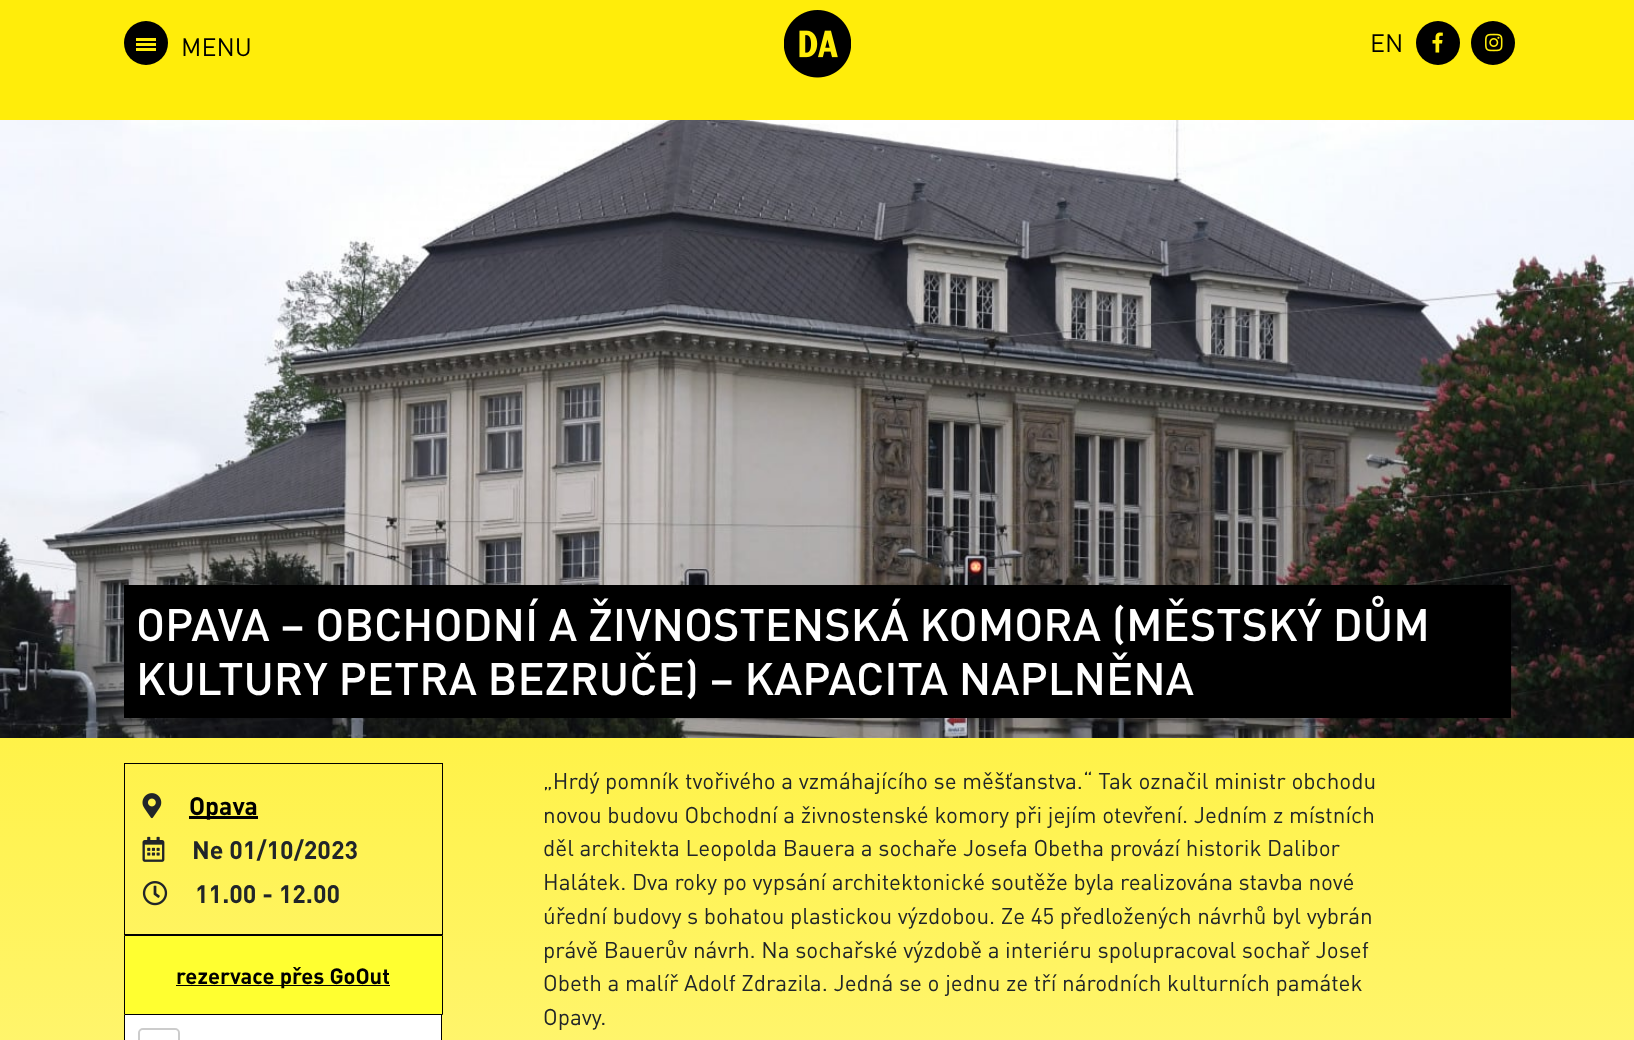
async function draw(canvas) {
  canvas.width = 1634;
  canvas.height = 1040;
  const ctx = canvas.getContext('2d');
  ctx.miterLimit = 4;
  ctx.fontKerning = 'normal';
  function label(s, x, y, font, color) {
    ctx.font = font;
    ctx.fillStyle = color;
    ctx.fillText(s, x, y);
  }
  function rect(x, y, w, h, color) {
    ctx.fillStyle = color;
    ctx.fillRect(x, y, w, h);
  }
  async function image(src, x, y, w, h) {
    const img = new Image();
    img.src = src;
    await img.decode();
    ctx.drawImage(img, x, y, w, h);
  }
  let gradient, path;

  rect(0, 0, 1634, 1040, '#fff');
  rect(0, 0, 1634, 120, '#ffed0a');
  ctx.fillStyle = '#000';
  ctx.beginPath();
  ctx.arc(146, 43, 22, 0, 2 * Math.PI);
  ctx.fill();
  rect(136, 38, 20, 3, '#ffed0a');
  rect(136, 43, 20, 3, '#ffed0a');
  rect(136, 48, 20, 3, '#ffed0a');
  label('MENU', 181, 56, '25px DIN', '#000');
  await image('assets/img1.png', 784, 10, 67, 68);
  label('EN', 1370, 52, '25px DIN', '#000');
  ctx.beginPath();
  ctx.arc(1438, 43, 22, 0, 2 * Math.PI);
  ctx.fill();
  await image('assets/img2.png', 1432, 32, 11, 21);
  ctx.beginPath();
  ctx.arc(1493, 43, 22, 0, 2 * Math.PI);
  ctx.fill();
  await image('assets/img3.png', 1485, 33, 18, 19);
  gradient = ctx.createLinearGradient(817, 112, 818, 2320);
  gradient.addColorStop(0, '#ffed00');
  gradient.addColorStop(1, '#fff');
  ctx.fillStyle = gradient;
  ctx.fillRect(0, 738, 1634, 302);
  await image('assets/img4.png', 0, 120, 1634, 618);
  rect(124, 585, 1387, 133, '#000');
  label('OPAVA – OBCHODNÍ A ŽIVNOSTENSKÁ KOMORA (MĚSTSKÝ DŮM', 136, 641, '500 45px DIN', '#fff');
  label('KULTURY PETRA BEZRUČE) – KAPACITA NAPLNĚNA', 136, 695, '500 45px DIN', '#fff');
  ctx.strokeStyle = '#000';
  ctx.strokeRect(124.5, 763.5, 318, 171);
  await image('assets/img5.png', 142, 793, 20, 26);
  rect(189, 816, 69, 3, '#000');
  label('Opava', 189, 815, 'bold 25px DIN', '#000');
  await image('assets/img6.png', 142, 836, 23, 26);
  label('Ne 01/10/2023', 192, 859, 'bold 25px DIN', '#212529');
  await image('assets/img7.png', 142, 881, 26, 25);
  label('11.00 - 12.00', 195, 903, 'bold 25px DIN', '#212529');
  ctx.fillStyle = '#ffff30';
  ctx.beginPath();
  ctx.rect(124.5, 935.5, 318, 79);
  ctx.fill();
  ctx.stroke();
  rect(176, 985, 214, 1, '#000');
  label('rezervace přes GoOut', 176, 984, 'bold 22px DIN', '#000');
  rect(441, 1015, 1, 25, '#000');
  rect(124, 1015, 1, 25, '#000');
  rect(125, 1015, 316, 25, '#fff');
  ctx.beginPath();
  ctx.roundRect(139.5, 1029.5, 39, 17, 3.5);
  ctx.strokeStyle = '#ccc';
  ctx.lineWidth = 3;
  ctx.stroke();
  path = new Path2D('M142.5 1030H175.5C177 1030 178 1031 178 1032.5V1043H140V1032.5C140 1031 141 1030 142.5 1030Z');
  ctx.fill(path);
  label('„Hrdý pomník tvořivého a vzmáhajícího se měšťanstva.“ Tak označil ministr obchodu', 543, 789, '22.5px DIN', '#212529');
  label('novou budovu Obchodní a živnostenské komory při jejím otevření. Jedním z místních', 543, 823, '22.5px DIN', '#212529');
  label('děl architekta Leopolda Bauera a sochaře Josefa Obetha provází historik Dalibor', 543, 856, '22.5px DIN', '#212529');
  label('Halátek. Dva roky po vypsání architektonické soutěže byla realizována stavba nové', 543, 890, '22.5px DIN', '#212529');
  label('úřední budovy s bohatou plastickou výzdobou. Ze 45 předložených návrhů byl vybrán', 543, 924, '22.5px DIN', '#212529');
  label('právě Bauerův návrh. Na sochařské výzdobě a interiéru spolupracoval sochař Josef', 543, 958, '22.5px DIN', '#212529');
  label('Obeth a malíř Adolf Zdrazila. Jedná se o jednu ze tří národních kulturních památek', 543, 991, '22.5px DIN', '#212529');
  label('Opavy.', 543, 1025, '22.5px DIN', '#212529');
}

draw(document.querySelector('canvas'));
